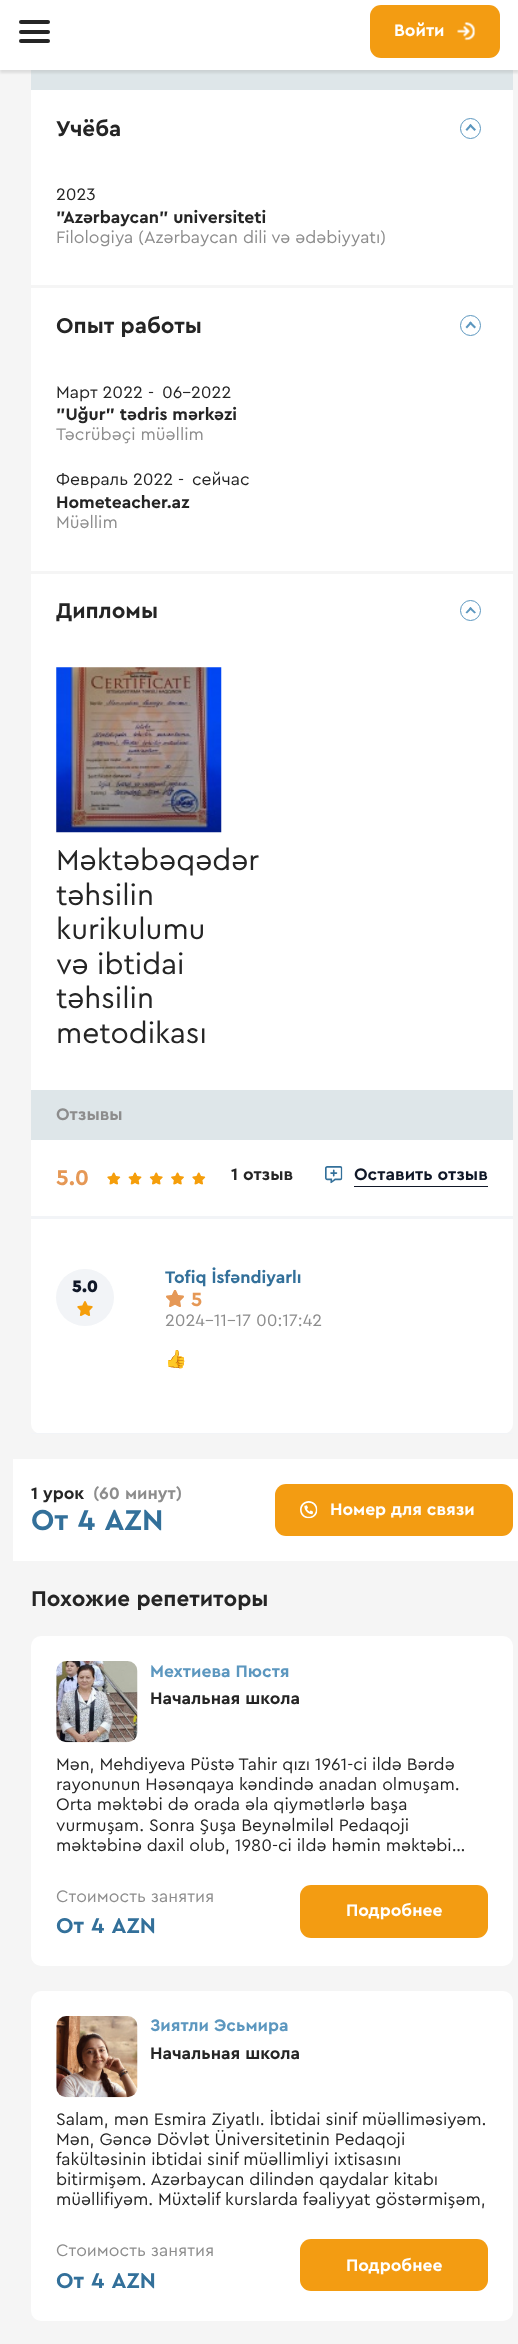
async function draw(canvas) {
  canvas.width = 518;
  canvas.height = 2344;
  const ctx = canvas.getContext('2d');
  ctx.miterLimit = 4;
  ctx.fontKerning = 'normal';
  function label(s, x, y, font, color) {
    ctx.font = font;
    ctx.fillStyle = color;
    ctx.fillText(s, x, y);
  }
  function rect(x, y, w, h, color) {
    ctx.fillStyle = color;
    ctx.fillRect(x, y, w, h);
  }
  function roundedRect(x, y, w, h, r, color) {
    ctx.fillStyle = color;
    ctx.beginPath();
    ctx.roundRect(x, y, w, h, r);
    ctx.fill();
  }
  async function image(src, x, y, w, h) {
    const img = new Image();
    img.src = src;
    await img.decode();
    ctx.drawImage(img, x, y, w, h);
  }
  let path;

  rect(0, 0, 518, 2344, '#f5f5f5');
  roundedRect(31, -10, 482, 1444, 10, '#fff');
  rect(31, 70, 482, 20, '#dee6e9');
  ctx.fillStyle = '#99999942';
  ctx.filter = 'blur(1px)';
  ctx.beginPath();
  ctx.rect(0, -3, 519, 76);
  ctx.fill();
  ctx.filter = 'none';
  rect(0, 0, 518, 70, '#fff');
  roundedRect(19, 20, 31, 4, 2, '#252525');
  roundedRect(19, 30, 31, 4, 2, '#252525');
  roundedRect(19, 39, 31, 4, 2, '#252525');
  roundedRect(370, 5, 130, 53, 11, '#f39c12');
  label('Войти', 394, 36, 'bold 17.5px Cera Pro', '#fff');
  await image('assets/img1.png', 457, 22, 19, 19);
  rect(31, 285, 482, 3, '#f5f5f5');
  label('Учёба', 56, 136, 'bold 22.5px Cera Pro', '#252525');
  ctx.beginPath();
  ctx.arc(470.5, 128.5, 10, 0, 2 * Math.PI);
  ctx.strokeStyle = '#5c97bf';
  ctx.stroke();
  ctx.fillStyle = '#5c97bf';
  path = new Path2D('M470.5 124L476 129.5L474.5 131L469 125.5Z');
  ctx.fill(path);
  path = new Path2D('M465.5 129.5L470.5 124L472 125.5L467 131Z');
  ctx.fill(path);
  label('2023', 56, 200, '17.5px Cera Pro', '#252525');
  label('"Azərbaycan" universiteti', 56, 223, 'bold 17.5px Cera Pro', '#252525');
  label('Filologiya (Azərbaycan dili və ədəbiyyatı)', 56, 243, '17.5px Cera Pro', '#8d8d8d');
  rect(31, 571, 482, 3, '#f5f5f5');
  label('Опыт работы', 56, 333, 'bold 22.5px Cera Pro', '#252525');
  ctx.beginPath();
  ctx.arc(470.5, 325.5, 10, 0, 2 * Math.PI);
  ctx.stroke();
  ctx.fillStyle = '#5c97bf';
  path = new Path2D('M470.5 321.5L476 327L474.5 328.5L469 323Z');
  ctx.fill(path);
  path = new Path2D('M465.5 327L470.5 321.5L472 323L467 328.5Z');
  ctx.fill(path);
  label('Март 2022', 56, 398, '17.5px Cera Pro', '#252525');
  ctx.wordSpacing = '3px';
  label('- 06-2022', 148, 398, '17.5px Cera Pro', '#252525');
  ctx.wordSpacing = '0px';
  label('"Uğur" tədris mərkəzi', 56, 420, 'bold 17.5px Cera Pro', '#252525');
  label('Təcrübəçi müəllim', 56, 440, '17.5px Cera Pro', '#8d8d8d');
  label('Февраль 2022', 56, 485, '17.5px Cera Pro', '#252525');
  ctx.wordSpacing = '3px';
  label('- сейчас', 178, 485, '17.5px Cera Pro', '#252525');
  ctx.wordSpacing = '0px';
  label('Hometeacher.az', 56, 508, 'bold 17.5px Cera Pro', '#252525');
  label('Müəllim', 56, 528, '17.5px Cera Pro', '#8d8d8d');
  label('Дипломы', 56, 618, 'bold 22.5px Cera Pro', '#252525');
  ctx.beginPath();
  ctx.arc(470.5, 610.5, 10, 0, 2 * Math.PI);
  ctx.stroke();
  ctx.fillStyle = '#5c97bf';
  path = new Path2D('M470.5 607L476 612.5L474.5 613.5L469 608.5Z');
  ctx.fill(path);
  path = new Path2D('M465.5 612.5L470.5 607L472 608.5L467 613.5Z');
  ctx.fill(path);
  await image('assets/img2.png', 56, 667, 166, 166);
  label('Məktəbəqədər', 56, 870, '30px Cera Pro', '#252525');
  label('təhsilin', 56, 905, '30px Cera Pro', '#252525');
  label('kurikulumu', 56, 939, '30px Cera Pro', '#252525');
  label('və ibtidai', 56, 974, '30px Cera Pro', '#252525');
  label('təhsilin', 56, 1008, '30px Cera Pro', '#252525');
  label('metodikası', 56, 1043, '30px Cera Pro', '#252525');
  rect(31, 1090, 482, 50, '#dee6e9');
  label('Отзывы', 56, 1120, 'bold 17.5px Cera Pro', '#8d8d8d');
  rect(31, 1216, 482, 3, '#f2f4f7');
  label('5.0', 56, 1185, 'bold 22.5px Cera Pro', '#e59856');
  await image('assets/img3.png', 107, 1172, 14, 13);
  await image('assets/img4.png', 128, 1172, 14, 13);
  await image('assets/img5.png', 149, 1172, 14, 13);
  await image('assets/img6.png', 171, 1172, 13, 13);
  await image('assets/img3.png', 192, 1172, 14, 13);
  label('1 отзыв', 231, 1180, 'bold 17.5px Cera Pro', '#252525');
  await image('assets/img7.png', 325, 1166, 18, 18);
  label('Оставить отзыв', 354, 1180, 'bold 17.5px Cera Pro', '#101828');
  rect(354, 1186, 134, 1, '#101828');
  rect(31, 1433, 482, 1, '#f2f4f7');
  roundedRect(56, 1269, 58, 57, 28.5, '#f2f4f7');
  label('5.0', 72, 1292, '900 17.5px Cera Pro', '#101828');
  await image('assets/img8.png', 77, 1301, 16, 15);
  label('Tofiq İsfəndiyarlı', 165, 1283, 'bold 17.5px Cera Pro', '#33709a');
  await image('assets/img9.png', 166, 1290, 18, 17);
  label('5', 191, 1306, 'bold 20px Cera Pro', '#e59856');
  label('2024-11-17 00:17:42', 165, 1326, '17.5px Cera Pro', '#8d8d8d');
  label('👍', 165, 1365, '17.5px Noto Color Emoji', '#252525');
  rect(13, 1459, 505, 102, '#fff');
  label('1 урок', 31, 1499, 'bold 17.5px Cera Pro', '#252525');
  label('(60 минут)', 93, 1499, 'bold 17.5px Cera Pro', '#8d8d8d');
  ctx.wordSpacing = '1px';
  label('От 4 AZN', 31, 1530, 'bold 30px Cera Pro', '#33709a');
  roundedRect(275, 1484, 238, 52, 11, '#f39c12');
  await image('assets/img10.png', 300, 1501, 18, 18);
  ctx.wordSpacing = '0px';
  label('Номер для связи', 330, 1515, 'bold 17.5px Cera Pro', '#fff');
  label('Похожие репетиторы', 31, 1606, 'bold 22.5px Cera Pro', '#252525');
  roundedRect(31, 1636, 482, 330, 10, '#fff');
  await image('assets/img11.png', 56, 1661, 82, 82);
  label('Мехтиева Пюстя', 150, 1677, 'bold 17.5px Cera Pro', '#5c97bf');
  label('Начальная школа', 150, 1704, 'bold 17.5px Cera Pro', '#252525');
  label('Mən, Mehdiyeva Püstə Tahir qızı 1961-ci ildə Bərdə', 56, 1770, '17.5px Cera Pro', '#252525');
  label('rayonunun Həsənqaya kəndində anadan olmuşam.', 56, 1790, '17.5px Cera Pro', '#252525');
  label('Orta məktəbi də orada əla qiymətlərlə başa', 56, 1810, '17.5px Cera Pro', '#252525');
  label('vurmuşam. Sonra Şuşa Beynəlmiləl Pedaqoji', 56, 1831, '17.5px Cera Pro', '#252525');
  label('məktəbinə daxil olub, 1980-ci ildə həmin məktəbi…', 56, 1851, '17.5px Cera Pro', '#252525');
  label('Стоимость занятия', 56, 1902, '17.5px Cera Pro', '#8d8d8d');
  ctx.wordSpacing = '1px';
  label('От 4 AZN', 56, 1933, 'bold 22.5px Cera Pro', '#33709a');
  roundedRect(300, 1885, 188, 53, 11, '#f39c12');
  ctx.wordSpacing = '0px';
  label('Подробнее', 346, 1916, 'bold 17.5px Cera Pro', '#fff');
  roundedRect(31, 1991, 482, 330, 10, '#fff');
  await image('assets/img12.png', 56, 2016, 82, 82);
  label('Зиятли Эсьмира', 150, 2031, 'bold 17.5px Cera Pro', '#5c97bf');
  label('Начальная школа', 150, 2059, 'bold 17.5px Cera Pro', '#252525');
  label('Salam, mən Esmira Ziyatlı. İbtidai sinif müəlliməsiyəm.', 56, 2125, '17.5px Cera Pro', '#252525');
  label('Mən, Gəncə Dövlət Üniversitetinin Pedaqoji', 56, 2145, '17.5px Cera Pro', '#252525');
  label('fakültəsinin ibtidai sinif müəllimliyi ixtisasını', 56, 2165, '17.5px Cera Pro', '#252525');
  label('bitirmişəm. Azərbaycan dilindən qaydalar kitabı', 56, 2185, '17.5px Cera Pro', '#252525');
  label('müəllifiyəm. Müxtəlif kurslarda fəaliyyat göstərmişəm,', 56, 2205, '17.5px Cera Pro', '#252525');
  label('Стоимость занятия', 56, 2256, '17.5px Cera Pro', '#8d8d8d');
  ctx.wordSpacing = '1px';
  label('От 4 AZN', 56, 2288, 'bold 22.5px Cera Pro', '#33709a');
  roundedRect(300, 2239, 188, 52, 11, '#f39c12');
  ctx.wordSpacing = '0px';
  label('Подробнее', 346, 2271, 'bold 17.5px Cera Pro', '#fff');
}

draw(document.querySelector('canvas'));
